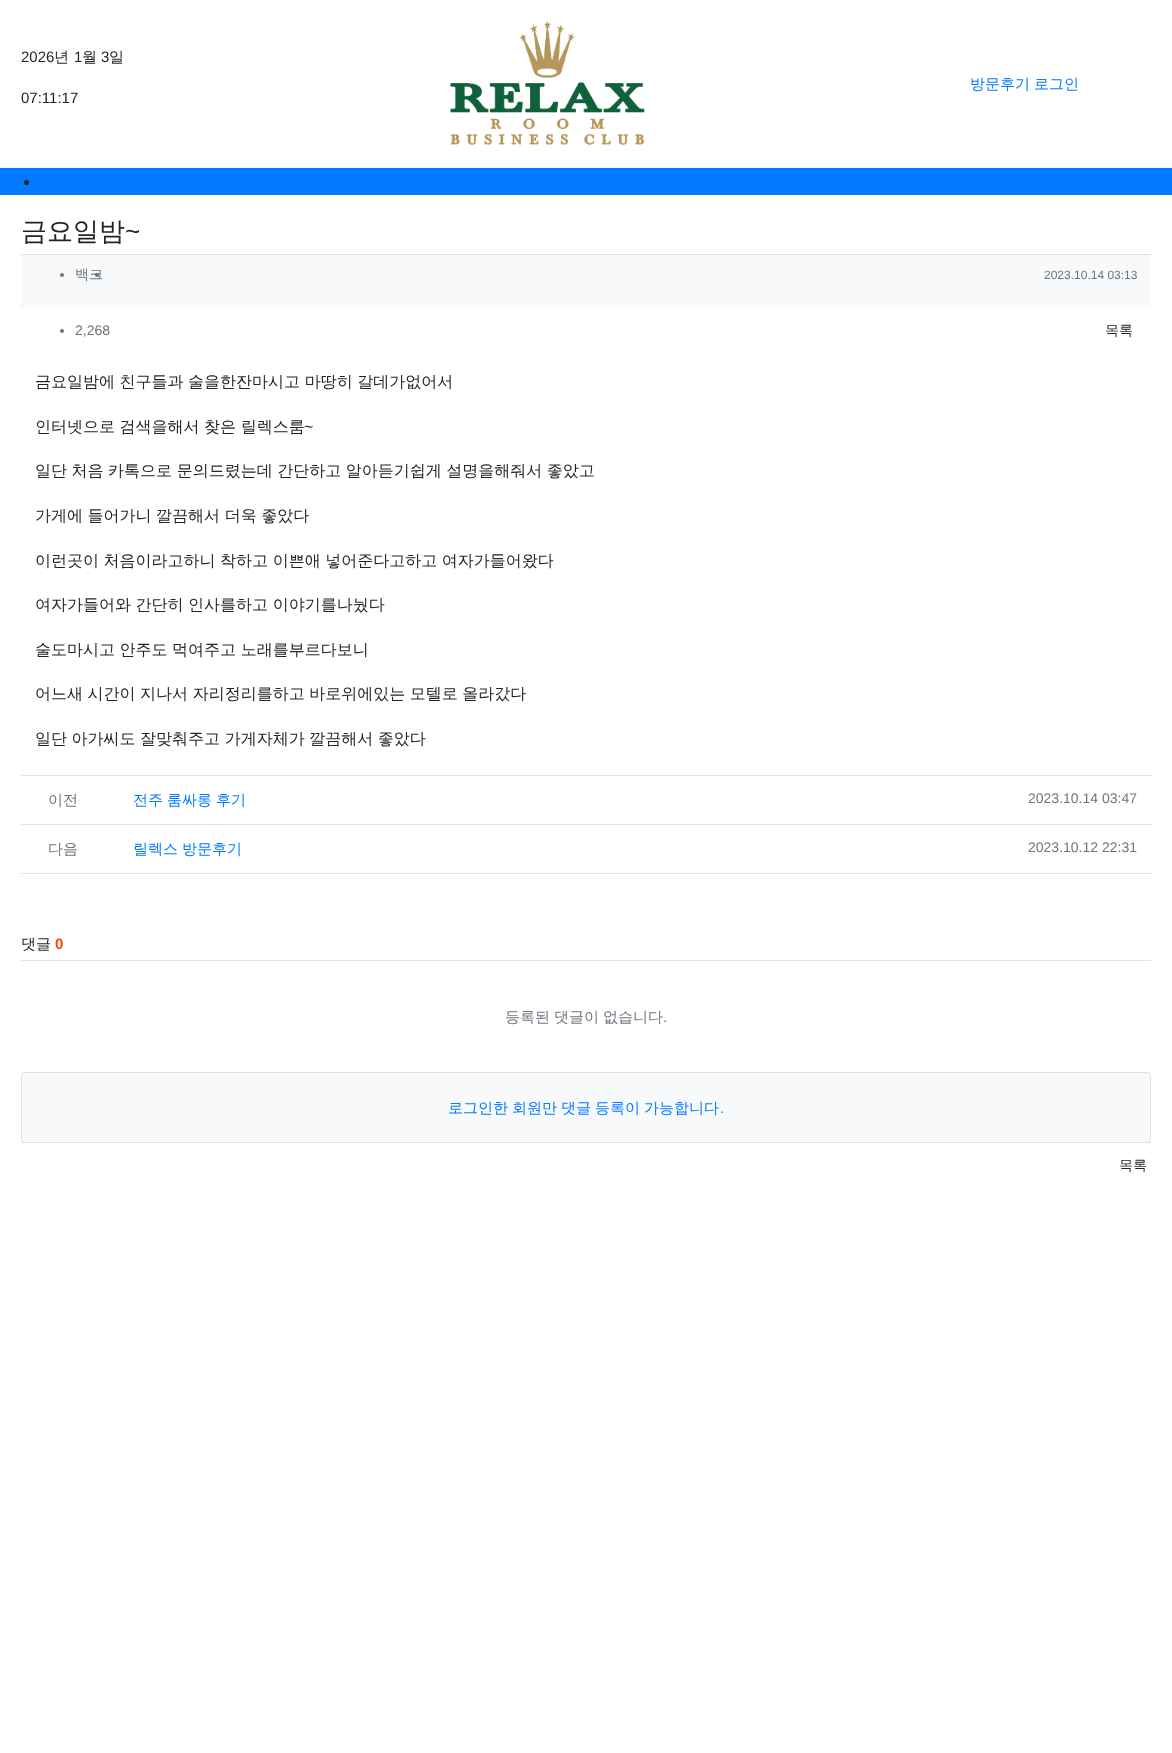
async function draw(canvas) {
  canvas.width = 1172;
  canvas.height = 1753;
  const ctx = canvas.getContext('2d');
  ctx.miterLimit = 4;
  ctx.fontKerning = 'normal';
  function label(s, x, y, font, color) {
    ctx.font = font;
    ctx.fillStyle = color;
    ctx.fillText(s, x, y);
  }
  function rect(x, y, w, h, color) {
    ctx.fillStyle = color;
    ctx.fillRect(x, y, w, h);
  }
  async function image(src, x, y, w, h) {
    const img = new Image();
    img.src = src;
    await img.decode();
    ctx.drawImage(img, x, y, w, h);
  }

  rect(0, 0, 1172, 1753, '#fff');
  label('2026', 21, 62, '15px Liberation Sans', '#212529');
  label('년', 54, 62, '500 15px WenQuanYi Zen Hei', '#212529');
  label('1', 74, 62, '15px Liberation Sans', '#212529');
  label('월', 82, 62, '500 15px WenQuanYi Zen Hei', '#212529');
  label('3', 101, 62, '15px Liberation Sans', '#212529');
  label('일', 109, 62, '500 15px WenQuanYi Zen Hei', '#212529');
  label('07:11:17', 21, 103, '15px Liberation Sans', '#212529');
  await image('assets/img1.png', 450, 21, 195, 124);
  label('방문후기', 970, 89, '500 15px WenQuanYi Zen Hei', '#007bff');
  label('로그인', 1034, 89, '500 15px WenQuanYi Zen Hei', '#007bff');
  rect(0, 168, 1172, 27, '#007bff');
  ctx.fillStyle = '#212529';
  ctx.beginPath();
  ctx.arc(26.5, 182.5, 2.5, 0, 2 * Math.PI);
  ctx.fill();
  label('금요일밤', 21, 240, '500 26px WenQuanYi Zen Hei', '#212529');
  label('~', 125, 240, '26px Liberation Sans', '#212529');
  rect(21, 255, 1130, 53, '#f8f9fa');
  rect(21, 254, 1130, 1, '#dee2e6');
  ctx.fillStyle = '#6c757d';
  ctx.beginPath();
  ctx.arc(62, 275, 2, 0, 2 * Math.PI);
  ctx.fill();
  label('백크', 75, 279, '500 14px WenQuanYi Zen Hei', '#6c757d');
  ctx.beginPath();
  ctx.arc(97, 275, 2, 0, 2 * Math.PI);
  ctx.fill();
  label('2023.10.14 03:13', 1044, 279, '12px Liberation Sans', '#6c757d');
  ctx.beginPath();
  ctx.arc(62, 331, 2, 0, 2 * Math.PI);
  ctx.fill();
  label('2,268', 75, 335, '14px Liberation Sans', '#6c757d');
  label('목록', 1105, 335, '500 14px WenQuanYi Zen Hei', '#212529');
  ctx.wordSpacing = '-0.25px';
  label('금요일밤에 친구들과 술을한잔마시고 마땅히 갈데가없어서', 35, 387, '500 16px WenQuanYi Zen Hei', '#212529');
  label('인터넷으로 검색을해서 찾은 릴렉스룸', 35, 432, '500 16px WenQuanYi Zen Hei', '#212529');
  ctx.wordSpacing = '0px';
  label('~', 304, 432, '16px Liberation Sans', '#212529');
  ctx.wordSpacing = '-0.25px';
  label('일단 처음 카톡으로 문의드렸는데 간단하고 알아듣기쉽게 설명을해줘서 좋았고', 35, 476, '500 16px WenQuanYi Zen Hei', '#212529');
  label('가게에 들어가니 깔끔해서 더욱 좋았다', 35, 521, '500 16px WenQuanYi Zen Hei', '#212529');
  label('이런곳이 처음이라고하니 착하고 이쁜애 넣어준다고하고 여자가들어왔다', 35, 566, '500 16px WenQuanYi Zen Hei', '#212529');
  label('여자가들어와 간단히 인사를하고 이야기를나눴다', 35, 610, '500 16px WenQuanYi Zen Hei', '#212529');
  label('술도마시고 안주도 먹여주고 노래를부르다보니', 35, 655, '500 16px WenQuanYi Zen Hei', '#212529');
  label('어느새 시간이 지나서 자리정리를하고 바로위에있는 모텔로 올라갔다', 35, 699, '500 16px WenQuanYi Zen Hei', '#212529');
  label('일단 아가씨도 잘맞춰주고 가게자체가 깔끔해서 좋았다', 35, 744, '500 16px WenQuanYi Zen Hei', '#212529');
  rect(21, 775, 1131, 1, '#dee2e6');
  ctx.wordSpacing = '0px';
  label('이전', 48, 805, '500 15px WenQuanYi Zen Hei', '#6c757d');
  ctx.wordSpacing = '-0.5px';
  label('전주 룸싸롱 후기', 133, 805, '500 15px WenQuanYi Zen Hei', '#007bff');
  ctx.wordSpacing = '0px';
  label('2023.10.14 03:47', 1028, 803, '14px Liberation Sans', '#6c757d');
  rect(21, 824, 1131, 1, '#dee2e6');
  rect(21, 873, 1131, 1, '#dee2e6');
  label('다음', 48, 854, '500 15px WenQuanYi Zen Hei', '#6c757d');
  ctx.wordSpacing = '-0.5px';
  label('릴렉스 방문후기', 133, 854, '500 15px WenQuanYi Zen Hei', '#007bff');
  ctx.wordSpacing = '0px';
  label('2023.10.12 22:31', 1028, 852, '14px Liberation Sans', '#6c757d');
  label('댓글', 21, 949, '500 15px WenQuanYi Zen Hei', '#212529');
  label('0', 55, 949, 'bold 15px Liberation Sans', '#ff4500');
  rect(21, 960, 1130, 1, '#dee2e6');
  ctx.wordSpacing = '-0.5px';
  label('등록된 댓글이 없습니다', 505, 1022, '500 15px WenQuanYi Zen Hei', '#6c757d');
  ctx.wordSpacing = '0px';
  label('.', 663, 1022, '15px Liberation Sans', '#6c757d');
  rect(21, 1142, 1130, 1, '#dee2e6');
  ctx.fillStyle = '#f8f9fa';
  ctx.beginPath();
  ctx.roundRect(21.5, 1072.5, 1129, 70, 3.5);
  ctx.fill();
  ctx.strokeStyle = '#dee2e6';
  ctx.stroke();
  ctx.wordSpacing = '-0.5px';
  label('로그인한 회원만 댓글 등록이 가능합니다', 448, 1113, '500 15px WenQuanYi Zen Hei', '#007bff');
  ctx.wordSpacing = '0px';
  label('.', 720, 1113, '15px Liberation Sans', '#007bff');
  label('목록', 1119, 1170, '500 14px WenQuanYi Zen Hei', '#212529');
}

draw(document.querySelector('canvas'));
